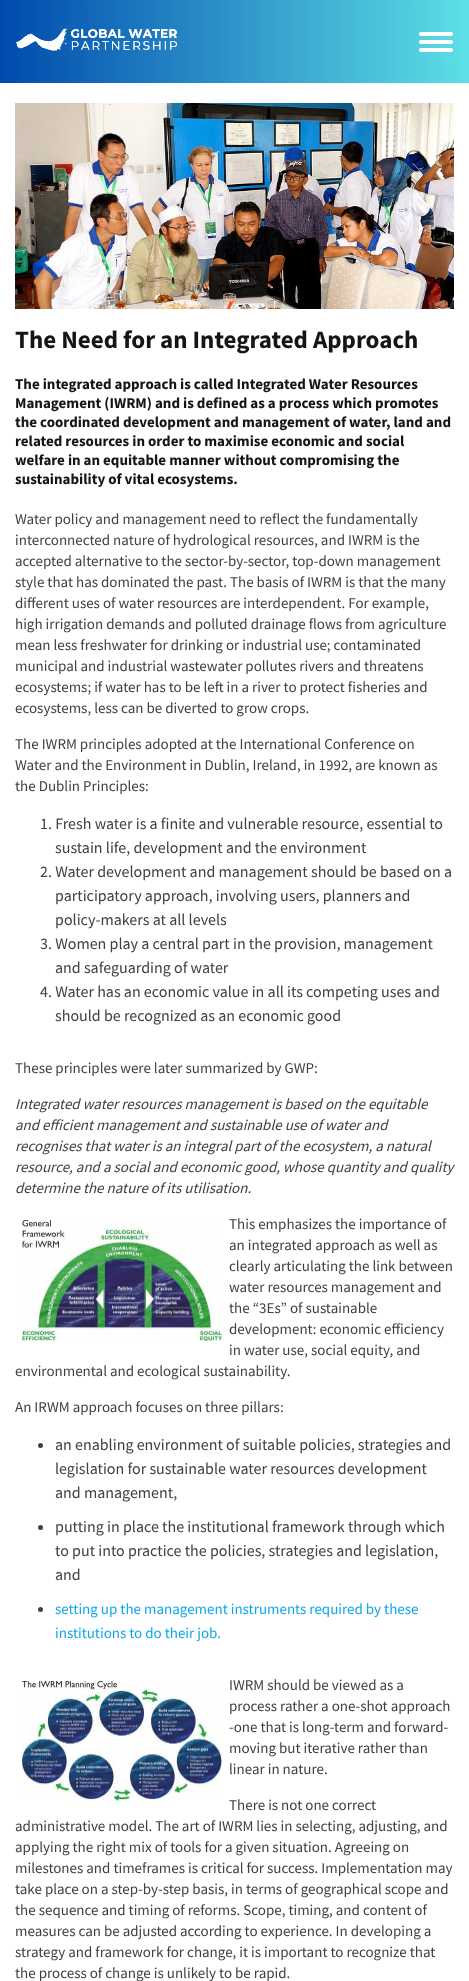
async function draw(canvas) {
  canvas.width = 469;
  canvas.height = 1981;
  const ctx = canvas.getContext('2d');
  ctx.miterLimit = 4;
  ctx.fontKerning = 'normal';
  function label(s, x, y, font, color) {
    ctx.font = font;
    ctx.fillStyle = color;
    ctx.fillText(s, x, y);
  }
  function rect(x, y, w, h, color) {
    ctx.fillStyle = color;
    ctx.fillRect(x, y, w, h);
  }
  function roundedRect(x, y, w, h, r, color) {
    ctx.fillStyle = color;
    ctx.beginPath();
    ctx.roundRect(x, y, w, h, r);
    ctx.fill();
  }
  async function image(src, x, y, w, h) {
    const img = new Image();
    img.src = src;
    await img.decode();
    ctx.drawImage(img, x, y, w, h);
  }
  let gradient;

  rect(0, 0, 469, 1981, '#fff');
  gradient = ctx.createLinearGradient(0, 42, 469, 41);
  gradient.addColorStop(0, '#004aad');
  gradient.addColorStop(1, '#5de0e6');
  ctx.fillStyle = gradient;
  ctx.fillRect(0, 0, 469, 83);
  await image('assets/img1.png', 16, 26, 161, 25);
  roundedRect(419, 32, 34, 4, 2, '#fff');
  roundedRect(419, 40, 34, 4, 2, '#fff');
  roundedRect(419, 48, 34, 4, 2, '#fff');
  await image('assets/img2.png', 15, 103, 439, 206);
  label('The Need for an Integrated Approach', 15, 348, 'bold 25px Source Sans Pro', '#151515');
  label('The integrated approach is called Integrated Water Resources', 15, 389, 'bold 15px Source Sans Pro', '#151515');
  label('Management (IWRM) and is defined as a process which promotes', 15, 408, 'bold 15px Source Sans Pro', '#151515');
  label('the coordinated development and management of water, land and', 15, 427, 'bold 15px Source Sans Pro', '#151515');
  label('related resources in order to maximise economic and social', 15, 446, 'bold 15px Source Sans Pro', '#151515');
  label('welfare in an equitable manner without compromising the', 15, 465, 'bold 15px Source Sans Pro', '#151515');
  label('sustainability of vital ecosystems.', 15, 484, 'bold 15px Source Sans Pro', '#151515');
  label('Water policy and management need to reflect the fundamentally', 15, 524, '15px Source Sans Pro', '#404040');
  label('interconnected nature of hydrological resources, and IWRM is the', 15, 545, '15px Source Sans Pro', '#404040');
  label('accepted alternative to the sector-by-sector, top-down management', 15, 566, '15px Source Sans Pro', '#404040');
  label('style that has dominated the past. The basis of IWRM is that the many', 15, 587, '15px Source Sans Pro', '#404040');
  label('different uses of water resources are interdependent. For example,', 15, 608, '15px Source Sans Pro', '#404040');
  label('high irrigation demands and polluted drainage flows from agriculture', 15, 629, '15px Source Sans Pro', '#404040');
  label('mean less freshwater for drinking or industrial use; contaminated', 15, 650, '15px Source Sans Pro', '#404040');
  label('municipal and industrial wastewater pollutes rivers and threatens', 15, 671, '15px Source Sans Pro', '#404040');
  label('ecosystems; if water has to be left in a river to protect fisheries and', 15, 692, '15px Source Sans Pro', '#404040');
  label('ecosystems, less can be diverted to grow crops.', 15, 713, '15px Source Sans Pro', '#404040');
  label('The IWRM principles adopted at the International Conference on', 15, 749, '15px Source Sans Pro', '#404040');
  label('Water and the Environment in Dublin, Ireland, in 1992, are known as', 15, 770, '15px Source Sans Pro', '#404040');
  label('the Dublin Principles:', 15, 791, '15px Source Sans Pro', '#404040');
  label('1. Fresh water is a finite and vulnerable resource, essential to', 40, 829, '16px Source Sans Pro', '#404040');
  label('sustain life, development and the environment', 55, 853, '16px Source Sans Pro', '#404040');
  label('2. Water development and management should be based on a', 40, 877, '16px Source Sans Pro', '#404040');
  label('participatory approach, involving users, planners and', 55, 901, '16px Source Sans Pro', '#404040');
  label('policy-makers at all levels', 55, 925, '16px Source Sans Pro', '#404040');
  label('3. Women play a central part in the provision, management', 40, 949, '16px Source Sans Pro', '#404040');
  label('and safeguarding of water', 55, 973, '16px Source Sans Pro', '#404040');
  label('4. Water has an economic value in all its competing uses and', 40, 997, '16px Source Sans Pro', '#404040');
  label('should be recognized as an economic good', 55, 1021, '16px Source Sans Pro', '#404040');
  label('These principles were later summarized by GWP:', 15, 1073, '15px Source Sans Pro', '#404040');
  label('Integrated water resources management is based on the equitable', 15, 1109, 'italic 15px Source Sans Pro', '#404040');
  label('and efficient management and sustainable use of water and', 15, 1130, 'italic 15px Source Sans Pro', '#404040');
  label('recognises that water is an integral part of the ecosystem, a natural', 15, 1151, 'italic 15px Source Sans Pro', '#404040');
  label('resource, and a social and economic good, whose quantity and quality', 15, 1172, 'italic 15px Source Sans Pro', '#404040');
  label('determine the nature of its utilisation.', 15, 1193, 'italic 15px Source Sans Pro', '#404040');
  label('This emphasizes the importance of', 229, 1229, '15px Source Sans Pro', '#404040');
  label('an integrated approach as well as', 229, 1250, '15px Source Sans Pro', '#404040');
  label('clearly articulating the link between', 229, 1271, '15px Source Sans Pro', '#404040');
  label('water resources management and', 229, 1292, '15px Source Sans Pro', '#404040');
  label('the “3Es” of sustainable', 229, 1313, '15px Source Sans Pro', '#404040');
  label('development: economic efficiency', 229, 1334, '15px Source Sans Pro', '#404040');
  label('in water use, social equity, and', 229, 1355, '15px Source Sans Pro', '#404040');
  label('environmental and ecological sustainability.', 15, 1376, '15px Source Sans Pro', '#404040');
  await image('assets/img3.png', 22, 1220, 200, 121);
  label('An IRWM approach focuses on three pillars:', 15, 1412, '15px Source Sans Pro', '#404040');
  ctx.beginPath();
  ctx.arc(40.5, 1445.5, 2.5, 0, 2 * Math.PI);
  ctx.fill();
  label('an enabling environment of suitable policies, strategies and', 55, 1450, '16px Source Sans Pro', '#404040');
  label('legislation for sustainable water resources development', 55, 1474, '16px Source Sans Pro', '#404040');
  label('and management,', 55, 1498, '16px Source Sans Pro', '#404040');
  ctx.beginPath();
  ctx.arc(40.5, 1527.5, 2.5, 0, 2 * Math.PI);
  ctx.fill();
  label('putting in place the institutional framework through which', 55, 1532, '16px Source Sans Pro', '#404040');
  label('to put into practice the policies, strategies and legislation,', 55, 1556, '16px Source Sans Pro', '#404040');
  label('and', 55, 1580, '16px Source Sans Pro', '#404040');
  ctx.beginPath();
  ctx.arc(40.5, 1609.5, 2.5, 0, 2 * Math.PI);
  ctx.fill();
  label('setting up the management instruments required by these', 55, 1614, '15px Source Sans Pro', '#0ea7ea');
  label('institutions to do their job.', 55, 1638, '15px Source Sans Pro', '#0ea7ea');
  await image('assets/img4.png', 22, 1681, 200, 120);
  label('IWRM should be viewed as a', 229, 1690, '15px Source Sans Pro', '#404040');
  label('process rather a one-shot approach', 229, 1711, '15px Source Sans Pro', '#404040');
  label('-one that is long-term and forward-', 229, 1732, '15px Source Sans Pro', '#404040');
  label('moving but iterative rather than', 229, 1753, '15px Source Sans Pro', '#404040');
  label('linear in nature.', 229, 1774, '15px Source Sans Pro', '#404040');
  label('There is not one correct', 229, 1810, '15px Source Sans Pro', '#404040');
  label('administrative model. The art of IWRM lies in selecting, adjusting, and', 15, 1831, '15px Source Sans Pro', '#404040');
  label('applying the right mix of tools for a given situation. Agreeing on', 15, 1852, '15px Source Sans Pro', '#404040');
  label('milestones and timeframes is critical for success. Implementation may', 15, 1873, '15px Source Sans Pro', '#404040');
  label('take place on a step-by-step basis, in terms of geographical scope and', 15, 1894, '15px Source Sans Pro', '#404040');
  label('the sequence and timing of reforms. Scope, timing, and content of', 15, 1915, '15px Source Sans Pro', '#404040');
  label('measures can be adjusted according to experience. In developing a', 15, 1936, '15px Source Sans Pro', '#404040');
  label('strategy and framework for change, it is important to recognize that', 15, 1957, '15px Source Sans Pro', '#404040');
  label('the process of change is unlikely to be rapid.', 15, 1978, '15px Source Sans Pro', '#404040');
}

draw(document.querySelector('canvas'));
